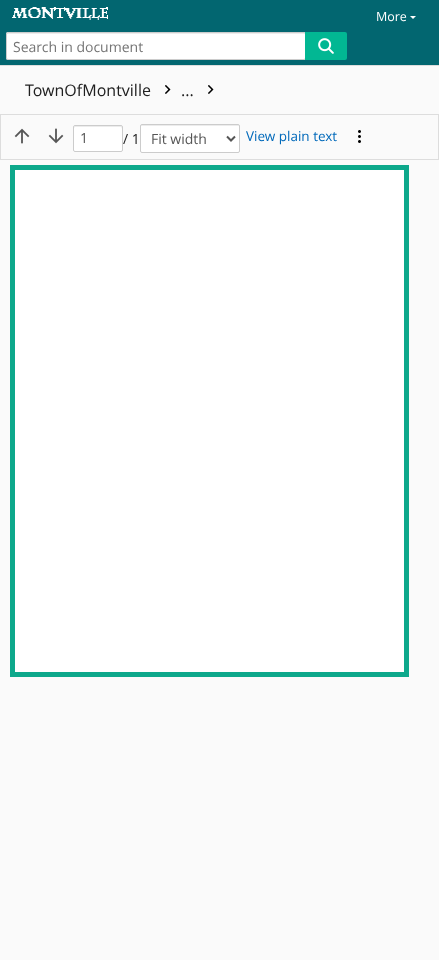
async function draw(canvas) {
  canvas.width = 439;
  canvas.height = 960;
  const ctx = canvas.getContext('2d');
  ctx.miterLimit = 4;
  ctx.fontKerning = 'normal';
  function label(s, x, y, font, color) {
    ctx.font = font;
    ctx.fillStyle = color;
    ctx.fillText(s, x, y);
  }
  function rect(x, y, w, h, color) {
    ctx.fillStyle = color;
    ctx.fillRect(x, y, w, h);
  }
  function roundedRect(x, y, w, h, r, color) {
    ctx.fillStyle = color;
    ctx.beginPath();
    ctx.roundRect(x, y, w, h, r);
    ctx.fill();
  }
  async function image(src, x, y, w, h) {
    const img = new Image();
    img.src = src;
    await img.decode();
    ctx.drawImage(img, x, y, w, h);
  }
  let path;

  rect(0, 0, 439, 960, '#fafafa');
  rect(0, 0, 439, 65, '#026670');
  rect(0, 65, 439, 1, '#ddd');
  await image('assets/img1.png', 12, 7, 96, 13);
  label('More', 376, 21, '12.5px Open Sans', '#fff');
  path = new Path2D('M410 16H416L413 19Z');
  ctx.fill(path);
  roundedRect(6, 32, 300, 28, 2, '#fff');
  ctx.fillStyle = '#ececec';
  path = new Path2D('M8 34H304C305 34 305 34 305 35C305 34 305 33 304 33H8H7V35C7 34 7 34 8 34Z');
  ctx.fill(path);
  ctx.beginPath();
  ctx.roundRect(6.5, 32.5, 299, 27, 1.5);
  ctx.strokeStyle = '#ccc';
  ctx.stroke();
  label('Search in document', 13, 52, '14px Open Sans', '#757575');
  ctx.fillStyle = '#02b793';
  ctx.beginPath();
  ctx.roundRect(305, 32, 42, 28, [0, 2, 2, 0]);
  ctx.fill();
  await image('assets/img2.png', 318, 38, 16, 16);
  rect(0, 114, 439, 1, '#ddd');
  label('TownOfMontville', 25, 96, '16px Open Sans', '#202020');
  await image('assets/img3.png', 165, 85, 6, 9);
  await image('assets/img3.png', 208, 85, 6, 9);
  label('...', 181, 96, '16px Open Sans', '#202020');
  rect(438, 115, 1, 45, '#ddd');
  rect(0, 159, 439, 1, '#ddd');
  rect(0, 115, 1, 45, '#ddd');
  await image('assets/img4.png', 14, 128, 16, 16);
  await image('assets/img5.png', 48, 128, 16, 16);
  roundedRect(73, 125, 50, 27, 2, '#fff');
  ctx.fillStyle = '#ececec';
  path = new Path2D('M75 127H116C122 127 122 126 122 132C122 124 123 126 113 126H83C79 126 74 124 74 128Z');
  ctx.fill(path);
  ctx.beginPath();
  ctx.roundRect(73.5, 125.5, 49, 26, 1.5);
  ctx.stroke();
  label('1', 80, 143, '14px Open Sans', '#555');
  label('/ 1', 123, 144, '14px Open Sans', '#202020');
  roundedRect(140, 124, 100, 29, 2, '#fff');
  ctx.fillStyle = '#ececec';
  path = new Path2D('M142 126H238C239 126 239 126 239 127C239 126 239 125 238 125H142C141 125 141 126 141 127C141 126 141 126 142 126Z');
  ctx.fill(path);
  ctx.beginPath();
  ctx.roundRect(140.5, 124.5, 99, 28, 1.5);
  ctx.stroke();
  path = new Path2D('M227 136.5L231 140.5L235 136.5');
  ctx.strokeStyle = '#555';
  ctx.lineWidth = 2;
  ctx.stroke(path);
  label('Fit width', 151, 144, '14px Open Sans', '#555');
  label('View plain text', 246, 141, '13.5px Open Sans', '#0069ba');
  await image('assets/img6.png', 358, 130, 3, 13);
  ctx.fillStyle = '#fff';
  ctx.beginPath();
  ctx.rect(12.5, 167.5, 394, 507);
  ctx.fill();
  ctx.strokeStyle = '#0da88b';
  ctx.lineWidth = 5;
  ctx.stroke();
}

draw(document.querySelector('canvas'));
